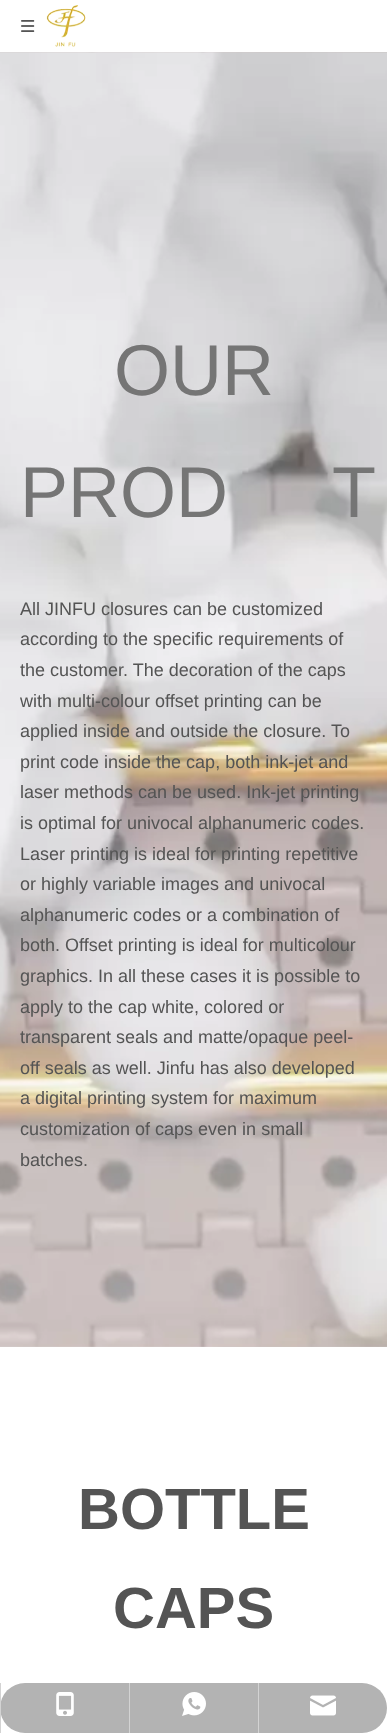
async function draw(canvas) {
  canvas.width = 387;
  canvas.height = 1736;
  const ctx = canvas.getContext('2d');
  ctx.miterLimit = 4;
  ctx.fontKerning = 'normal';
  function label(s, x, y, font, color) {
    ctx.font = font;
    ctx.fillStyle = color;
    ctx.fillText(s, x, y);
  }
  function rect(x, y, w, h, color) {
    ctx.fillStyle = color;
    ctx.fillRect(x, y, w, h);
  }
  function roundedRect(x, y, w, h, r, color) {
    ctx.fillStyle = color;
    ctx.beginPath();
    ctx.roundRect(x, y, w, h, r);
    ctx.fill();
  }
  async function image(src, x, y, w, h) {
    const img = new Image();
    img.src = src;
    await img.decode();
    ctx.drawImage(img, x, y, w, h);
  }

  rect(0, 0, 387, 1736, '#fff');
  await image('assets/img1.png', 21, 20, 14, 12);
  await image('assets/img2.png', 46, 5, 40, 42);
  await image('assets/img3.png', 0, 52, 387, 1295);
  label('OUR', 114, 395, '72px Liberation Sans', '#757575');
  label('PROD', 20, 517, '72px Liberation Sans', '#757575');
  label('T', 332, 517, '72px Liberation Sans', '#757575');
  label('All JINFU closures can be customized', 20, 615, '18px Liberation Sans', '#545454');
  label('according to the specific requirements of', 20, 645, '18px Liberation Sans', '#545454');
  label('the customer. The decoration of the caps', 20, 676, '18px Liberation Sans', '#545454');
  label('with multi-colour offset printing can be', 20, 707, '18px Liberation Sans', '#545454');
  label('applied inside and outside the closure. To', 20, 737, '18px Liberation Sans', '#545454');
  label('print code inside the cap, both ink-jet and', 20, 768, '18px Liberation Sans', '#545454');
  label('laser methods can be used. Ink-jet printing', 20, 798, '18px Liberation Sans', '#545454');
  label('is optimal for univocal alphanumeric codes.', 20, 829, '18px Liberation Sans', '#545454');
  label('Laser printing is ideal for printing repetitive', 20, 860, '18px Liberation Sans', '#545454');
  label('or highly variable images and univocal', 20, 890, '18px Liberation Sans', '#545454');
  label('alphanumeric codes or a combination of', 20, 921, '18px Liberation Sans', '#545454');
  label('both. Offset printing is ideal for multicolour', 20, 951, '18px Liberation Sans', '#545454');
  label('graphics. In all these cases it is possible to', 20, 982, '18px Liberation Sans', '#545454');
  label('apply to the cap white, colored or', 20, 1013, '18px Liberation Sans', '#545454');
  label('transparent seals and matte/opaque peel-', 20, 1043, '18px Liberation Sans', '#545454');
  label('off seals as well. Jinfu has also developed', 20, 1074, '18px Liberation Sans', '#545454');
  label('a digital printing system for maximum', 20, 1104, '18px Liberation Sans', '#545454');
  label('customization of caps even in small', 20, 1135, '18px Liberation Sans', '#545454');
  label('batches.', 20, 1166, '18px Liberation Sans', '#545454');
  label('BOTTLE', 78, 1529, 'bold 58px Liberation Sans', '#545454');
  label('CAPS', 113, 1628, 'bold 58px Liberation Sans', '#545454');
  roundedRect(0, 1683, 387, 50, 25, '#b3b3b3');
  rect(0, 1683, 1, 50, '#d3d3d3');
  await image('assets/img4.png', 56, 1692, 18, 24);
  rect(129, 1683, 1, 50, '#d3d3d3');
  await image('assets/img5.png', 182, 1692, 24, 24);
  rect(258, 1683, 1, 50, '#d3d3d3');
  await image('assets/img6.png', 310, 1695, 26, 21);
}

draw(document.querySelector('canvas'));
